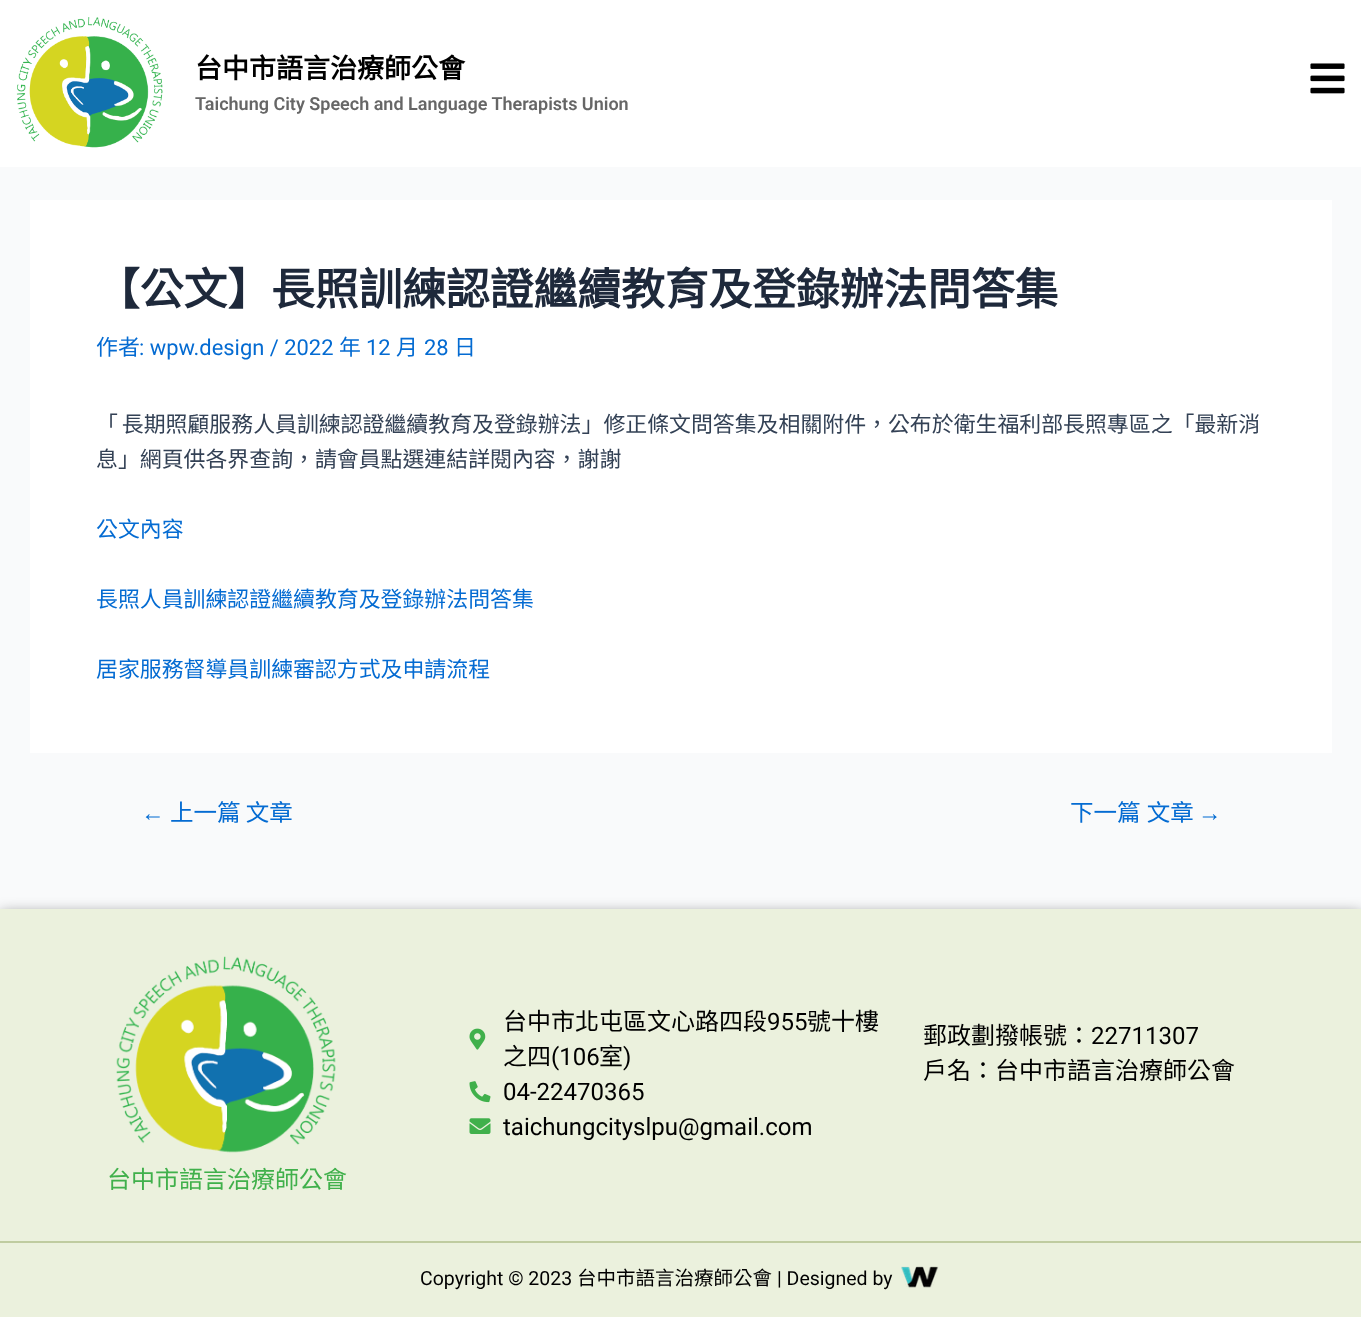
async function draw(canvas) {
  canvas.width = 1361;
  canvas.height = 1317;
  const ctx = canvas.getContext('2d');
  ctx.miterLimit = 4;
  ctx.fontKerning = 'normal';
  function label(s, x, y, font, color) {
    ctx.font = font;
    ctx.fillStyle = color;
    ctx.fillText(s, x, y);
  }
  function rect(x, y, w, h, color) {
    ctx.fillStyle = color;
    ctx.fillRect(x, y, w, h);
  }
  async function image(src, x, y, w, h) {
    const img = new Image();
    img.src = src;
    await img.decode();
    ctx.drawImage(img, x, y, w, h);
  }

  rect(0, 0, 1361, 1317, '#f9fafb');
  rect(0, 0, 1361, 167, '#fff');
  await image('assets/img1.png', 16, 17, 147, 131);
  label('台中市語言治療師公會', 195, 78, 'bold 27px Noto Sans CJK TC', '#000');
  label('Taichung City Speech and Language Therapists Union', 195, 110, '600 18px Roboto', '#666');
  await image('assets/img2.png', 1310, 63, 35, 31);
  rect(30, 200, 1302, 553, '#fff');
  label('【公文】長照訓練認證繼續教育及登錄辦法問答集', 96, 305, 'bold 43.75px Noto Sans CJK TC', '#1e293b');
  label('作者', 96, 355, '21.9px Noto Sans CJK TC', '#046bd2');
  label(': wpw.design / 2022', 139, 355, '21.9px Roboto', '#046bd2');
  label('年', 339, 355, '21.9px Noto Sans CJK TC', '#046bd2');
  label('12', 366, 355, '21.9px Roboto', '#046bd2');
  label('月', 396, 355, '21.9px Noto Sans CJK TC', '#046bd2');
  label('28', 424, 355, '21.9px Roboto', '#046bd2');
  label('日', 454, 355, '21.9px Noto Sans CJK TC', '#046bd2');
  ctx.wordSpacing = '-1px';
  label('「 長期照顧服務人員訓練認證繼續教育及登錄辦法」修正條文問答集及相關附件，公布於衛生福利部長照專區之「最新消', 96, 432, '21.9px Noto Sans CJK TC', '#334155');
  ctx.wordSpacing = '0px';
  label('息」網頁供各界查詢，請會員點選連結詳閱內容，謝謝', 96, 467, '21.9px Noto Sans CJK TC', '#334155');
  label('公文內容', 96, 537, '21.9px Noto Sans CJK TC', '#046bd2');
  label('長照人員訓練認證繼續教育及登錄辦法問答集', 96, 607, '21.9px Noto Sans CJK TC', '#046bd2');
  label('居家服務督導員訓練審認方式及申請流程', 96, 677, '21.9px Noto Sans CJK TC', '#046bd2');
  label('←', 141, 821, '23.5px Liberation Sans', '#046bd2');
  label('上一篇 文章', 170, 821, '23.5px Noto Sans CJK TC', '#046bd2');
  ctx.wordSpacing = '1px';
  label('下一篇 文章', 1070, 821, '23.5px Noto Sans CJK TC', '#046bd2');
  ctx.wordSpacing = '0px';
  label('→', 1198, 821, '23.5px Liberation Sans', '#046bd2');
  ctx.fillStyle = '#00000080';
  ctx.filter = 'blur(7.5px)';
  ctx.beginPath();
  ctx.rect(0, 914, 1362, 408);
  ctx.fill();
  ctx.filter = 'none';
  rect(0, 909, 1361, 408, '#ebf1dd');
  await image('assets/img3.png', 469, 1028, 17, 22);
  label('台中市北屯區文心路四段', 503, 1030, '24px Noto Sans CJK TC', '#000');
  label('955', 767, 1030, '24px Roboto', '#000');
  label('號十樓', 807, 1030, '24px Noto Sans CJK TC', '#000');
  label('之四', 503, 1065, '24px Noto Sans CJK TC', '#000');
  label('(106', 551, 1065, '24px Roboto', '#000');
  label('室', 599, 1065, '24px Noto Sans CJK TC', '#000');
  label(')', 623, 1065, '24px Roboto', '#000');
  await image('assets/img4.png', 469, 1081, 22, 22);
  label('04-22470365', 503, 1100, '24px Roboto', '#000');
  await image('assets/img5.png', 469, 1118, 22, 16);
  label('taichungcityslpu@gmail.com', 503, 1135, '24px Roboto', '#000');
  label('郵政劃撥帳號：', 923, 1044, '24px Noto Sans CJK TC', '#000');
  label('22711307', 1091, 1044, '24px Roboto', '#000');
  label('戶名：台中市語言治療師公會', 923, 1079, '24px Noto Sans CJK TC', '#000');
  await image('assets/img6.png', 116, 956, 220, 197);
  label('台中市語言治療師公會', 107, 1188, '24px Noto Sans CJK TC', '#40b04b');
  rect(0, 1241, 1361, 2, '#bfcca0');
  label('Copyright © 2023', 420, 1285, '19.5px Roboto', '#000');
  label('台中市語言治療師公會', 577, 1285, '19.5px Noto Sans CJK TC', '#000');
  label('| Designed by', 777, 1285, '19.5px Roboto', '#000');
  await image('assets/img7.png', 901, 1266, 38, 22);
}

draw(document.querySelector('canvas'));
